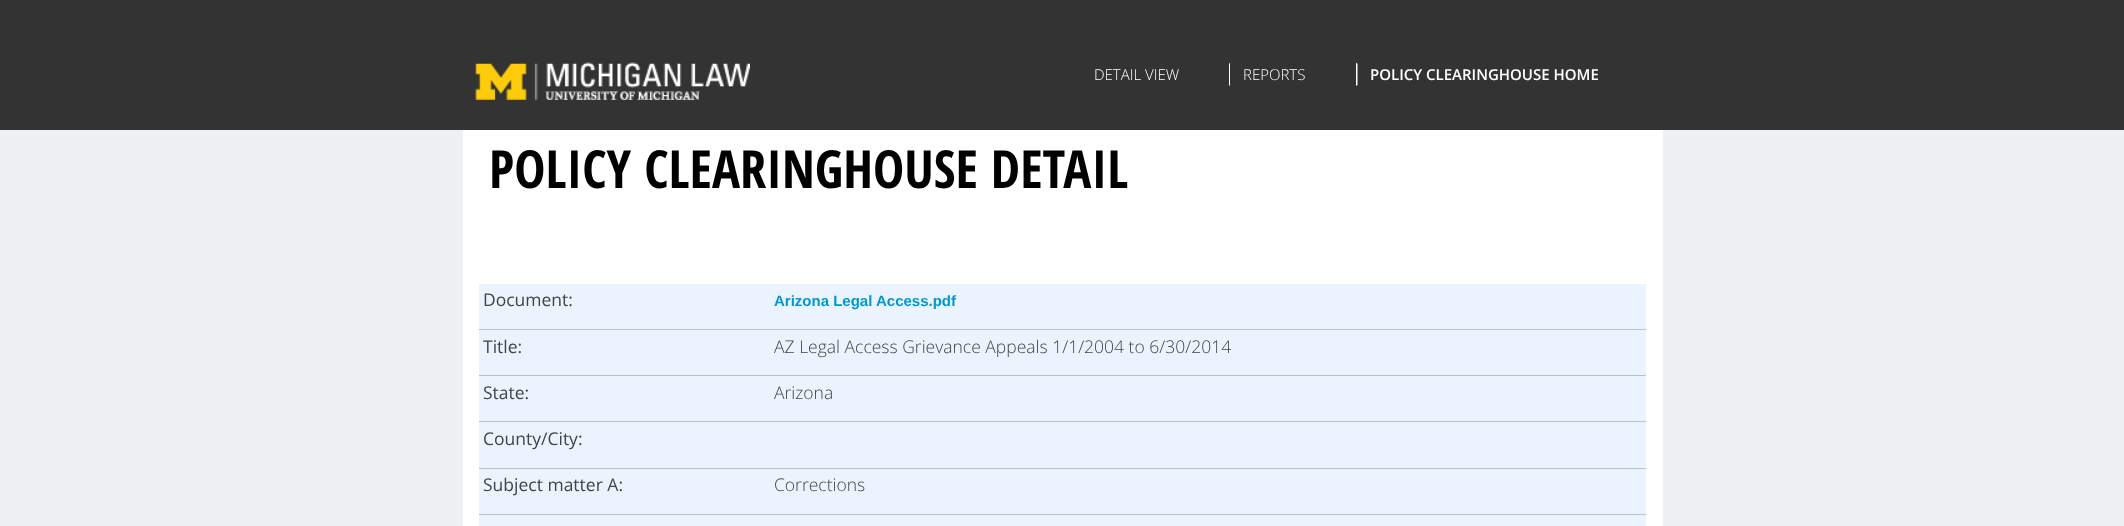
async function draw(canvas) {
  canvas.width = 2124;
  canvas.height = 526;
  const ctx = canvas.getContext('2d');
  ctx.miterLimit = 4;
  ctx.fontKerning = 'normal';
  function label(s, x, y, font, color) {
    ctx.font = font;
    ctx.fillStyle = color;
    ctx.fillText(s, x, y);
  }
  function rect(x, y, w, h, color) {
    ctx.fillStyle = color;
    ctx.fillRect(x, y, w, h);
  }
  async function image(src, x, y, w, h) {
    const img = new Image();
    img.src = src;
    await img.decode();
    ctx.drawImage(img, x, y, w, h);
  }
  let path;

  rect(0, 0, 2124, 526, '#333');
  await image('assets/img1.png', 475, 62, 275, 38);
  label('DETAIL VIEW', 1094, 80, '300 15px Open Sans', '#fff');
  path = new Path2D('M1229 86V62.5L1230 64V85Z');
  ctx.fill(path);
  label('REPORTS', 1243, 80, '300 15px Open Sans', '#fff');
  path = new Path2D('M1356 86V62.5L1357.5 64V85Z');
  ctx.fill(path);
  label('POLICY CLEARINGHOUSE HOME', 1370, 80, '600 15px Open Sans', '#fff');
  rect(0, 130, 2124, 396, '#eff0f1');
  rect(463, 130, 1200, 396, '#fff');
  label('POLICY CLEARINGHOUSE DETAIL', 489, 188, 'bold 52.5px Open Sans Condensed', '#000');
  rect(479, 284, 1167, 45, '#ebf3ff');
  rect(479, 329, 1167, 1, '#c0c0c0');
  label('Document:', 483, 306, '17.5px Open Sans', '#444');
  label('Arizona Legal Access.pdf', 774, 306, 'bold 15px Liberation Sans', '#09c');
  rect(479, 330, 1167, 45, '#ebf3ff');
  rect(479, 375, 1167, 1, '#c0c0c0');
  label('Title:', 483, 353, '17.5px Open Sans', '#444');
  label('AZ Legal Access Grievance Appeals 1/1/2004 to 6/30/2014', 774, 353, '300 17.5px Open Sans', '#444');
  rect(479, 376, 1167, 47, '#ebf3ff');
  rect(479, 421, 1167, 1, '#c0c0c0');
  label('State:', 483, 399, '17.5px Open Sans', '#444');
  label('Arizona', 774, 399, '300 17.5px Open Sans', '#444');
  rect(479, 423, 1167, 45, '#ebf3ff');
  rect(479, 468, 1167, 1, '#c0c0c0');
  label('County/City:', 483, 445, '17.5px Open Sans', '#444');
  rect(479, 469, 1167, 45, '#ebf3ff');
  rect(479, 514, 1167, 1, '#c0c0c0');
  label('Subject matter A:', 483, 491, '17.5px Open Sans', '#444');
  label('Corrections', 774, 491, '300 17.5px Open Sans', '#444');
  rect(479, 515, 1167, 11, '#ebf3ff');
}

draw(document.querySelector('canvas'));
